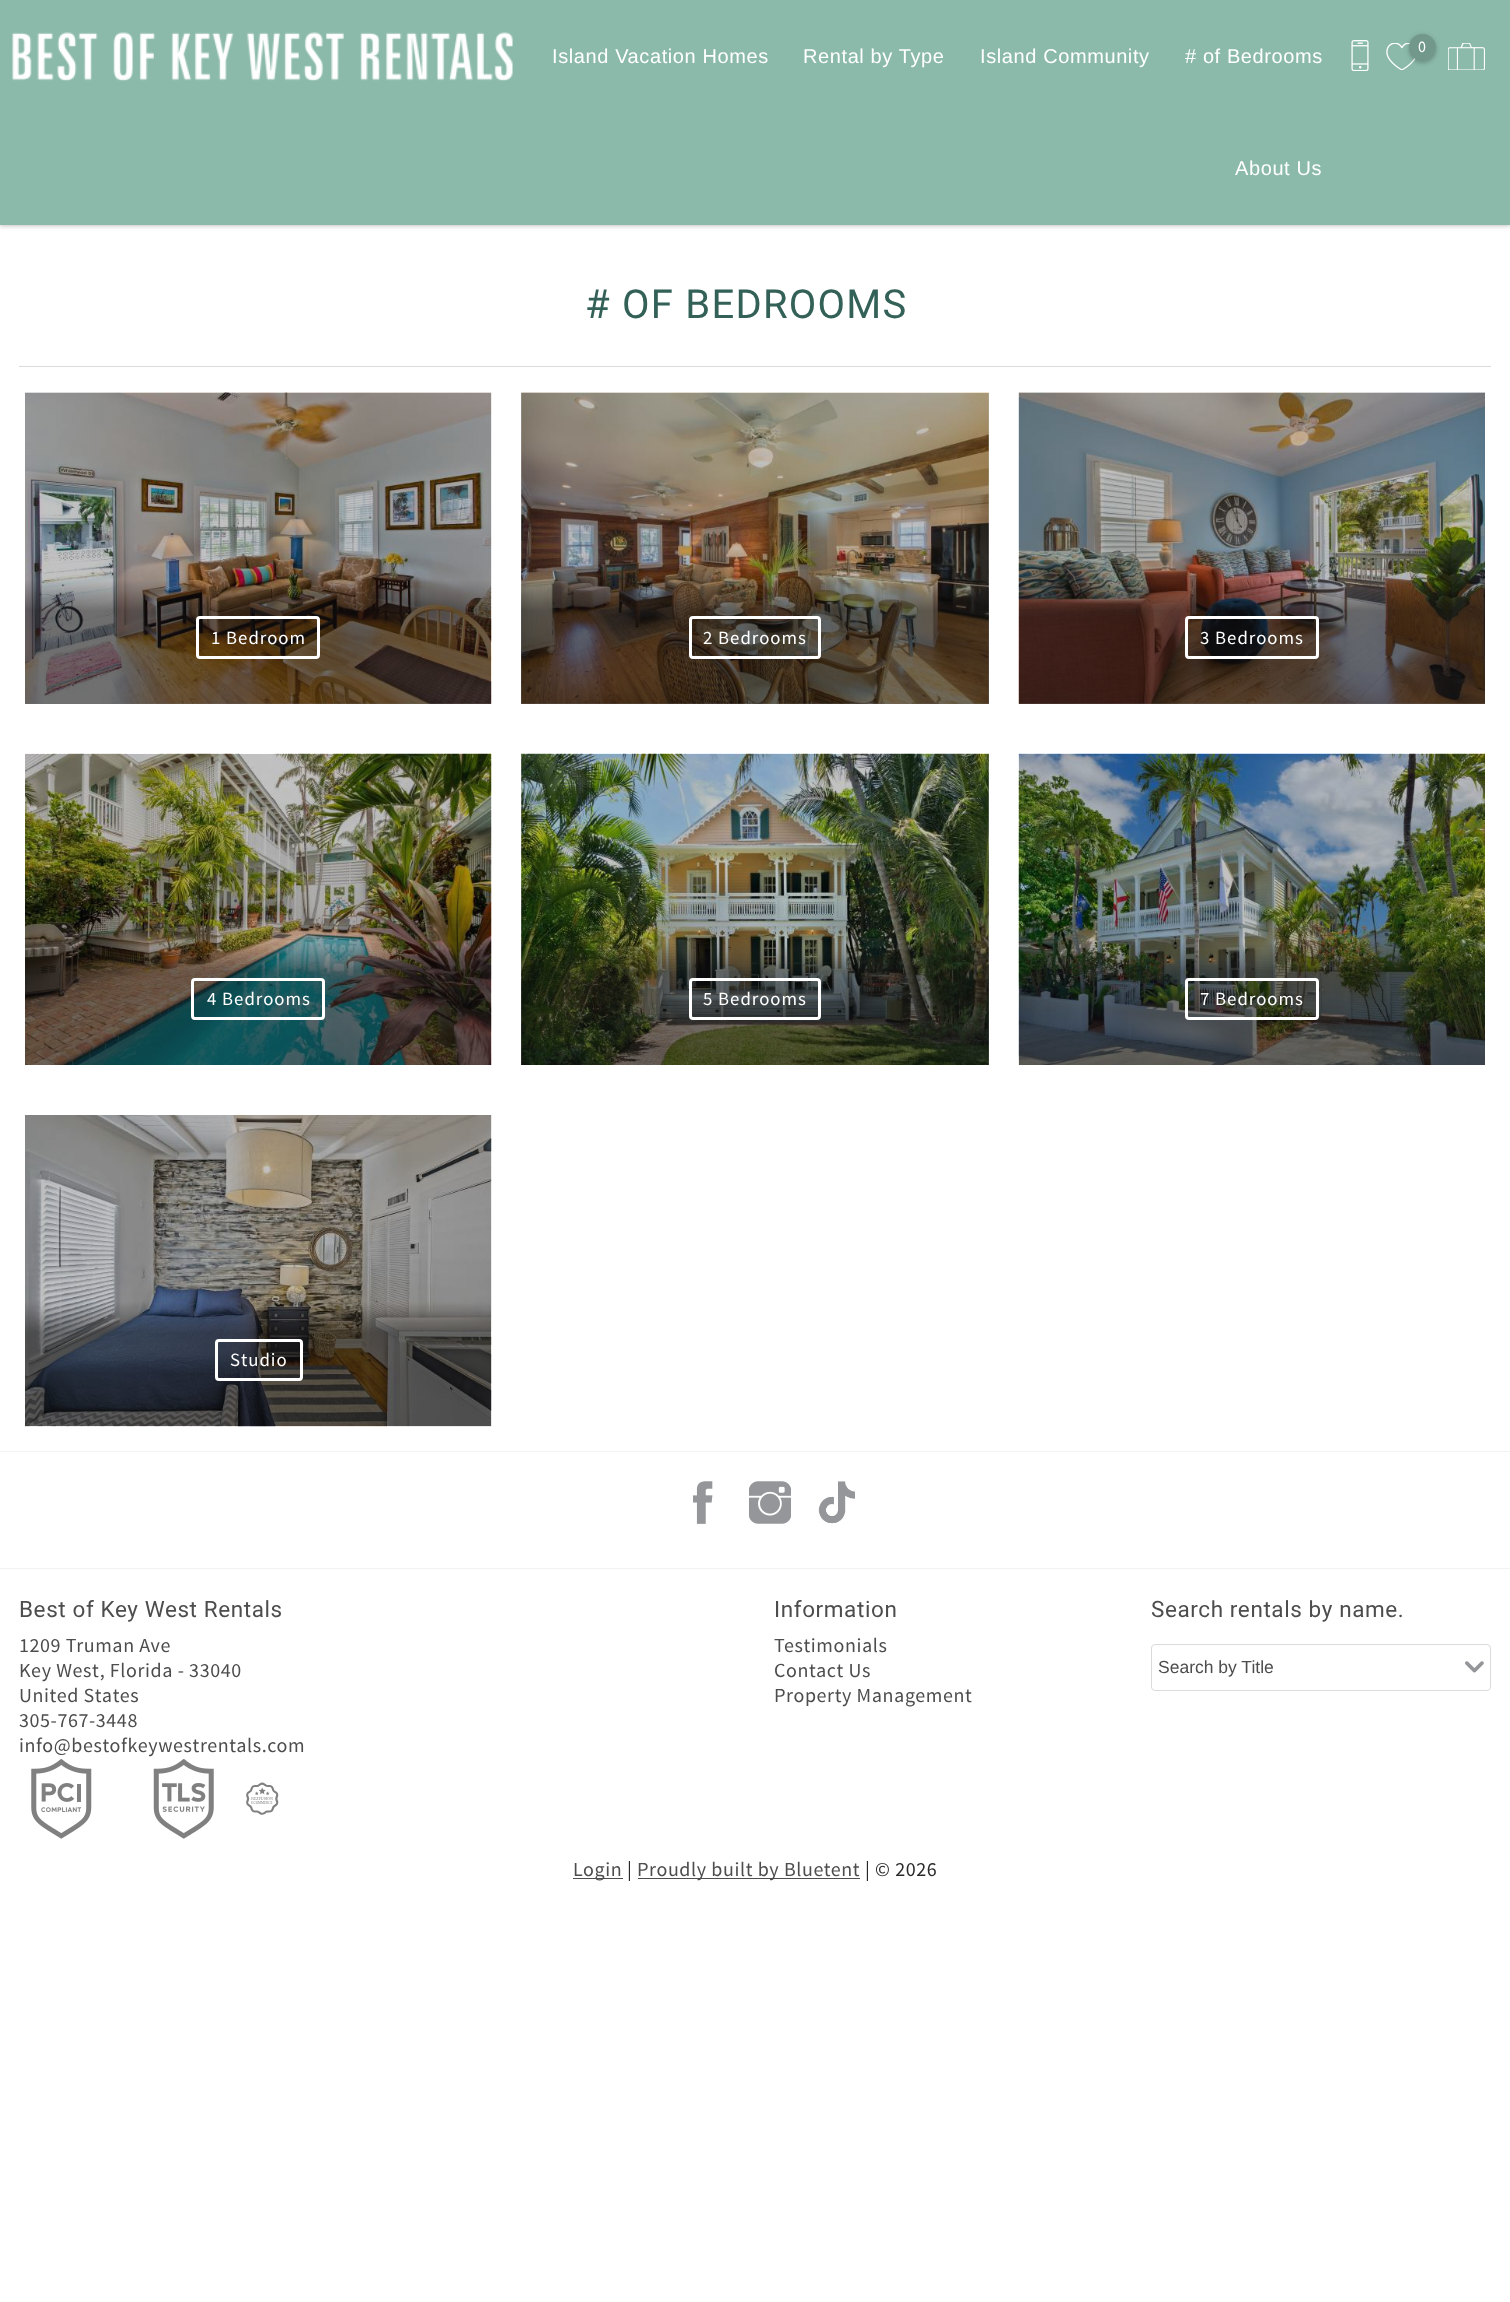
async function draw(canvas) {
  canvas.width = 1510;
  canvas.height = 2302;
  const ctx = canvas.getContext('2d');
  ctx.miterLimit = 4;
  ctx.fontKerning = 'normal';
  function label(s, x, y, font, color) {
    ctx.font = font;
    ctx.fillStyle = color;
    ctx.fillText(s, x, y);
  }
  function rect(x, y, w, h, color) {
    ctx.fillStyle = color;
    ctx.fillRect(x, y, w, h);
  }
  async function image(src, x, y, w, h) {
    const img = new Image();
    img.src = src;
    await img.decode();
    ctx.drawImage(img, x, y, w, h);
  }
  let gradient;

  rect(0, 0, 1510, 2302, '#fff');
  ctx.fillStyle = '#11111140';
  ctx.filter = 'blur(2px)';
  ctx.beginPath();
  ctx.rect(0, 1, 1510, 225);
  ctx.fill();
  ctx.filter = 'none';
  rect(0, 0, 1510, 225, '#8bbaaa');
  await image('assets/img1.png', 12, 32, 501, 49);
  ctx.letterSpacing = '0.6px';
  label('Island Vacation Homes', 552, 63, '20px Liberation Sans', '#fff');
  label('Rental by Type', 803, 63, '20px Liberation Sans', '#fff');
  label('Island Community', 980, 63, '20px Liberation Sans', '#fff');
  label('# of Bedrooms', 1185, 63, '20px Liberation Sans', '#fff');
  label('About Us', 1235, 175, '20px Liberation Sans', '#fff');
  await image('assets/img2.png', 1351, 40, 18, 31);
  await image('assets/img3.png', 1386, 43, 30, 27);
  ctx.fillStyle = '#11111140';
  ctx.filter = 'blur(2px)';
  ctx.beginPath();
  ctx.roundRect(1409, 35, 27, 28, 13.5);
  ctx.fill();
  ctx.filter = 'none';
  ctx.fillStyle = '#72988b';
  ctx.beginPath();
  ctx.arc(1422.5, 47.5, 13.5, 0, 2 * Math.PI);
  ctx.fill();
  label('0', 1418, 52, '16px Source Sans Pro', '#fff');
  await image('assets/img4.png', 1448, 43, 37, 27);
  rect(19, 366, 1472, 1, '#dbdbdb');
  ctx.letterSpacing = '1.25px';
  label('# OF BEDROOMS', 585, 318, '40px Roboto', '#336157');
  await image('assets/img5.png', 25, 392, 467, 312);
  gradient = ctx.createLinearGradient(258, 393, 258, 704);
  gradient.addColorStop(0.6, '#11111140');
  gradient.addColorStop(0.7, '#11111199');
  ctx.fillStyle = gradient;
  ctx.fillRect(25, 393, 466, 311);
  ctx.beginPath();
  ctx.roundRect(197.5, 617.5, 121, 40, 2.5);
  ctx.strokeStyle = '#fff';
  ctx.lineWidth = 3;
  ctx.stroke();
  ctx.letterSpacing = '1px';
  label('1 Bedroom', 211, 644, '18.75px Source Sans Pro', '#fff');
  await image('assets/img6.png', 521, 392, 468, 312);
  gradient = ctx.createLinearGradient(755, 393, 755, 704);
  gradient.addColorStop(0.6, '#11111140');
  gradient.addColorStop(0.7, '#11111199');
  ctx.fillStyle = gradient;
  ctx.fillRect(521, 393, 468, 311);
  ctx.beginPath();
  ctx.roundRect(690.5, 617.5, 129, 40, 2.5);
  ctx.stroke();
  label('2 Bedrooms', 703, 644, '18.75px Source Sans Pro', '#fff');
  await image('assets/img7.png', 1018, 392, 467, 312);
  gradient = ctx.createLinearGradient(1252, 393, 1252, 704);
  gradient.addColorStop(0.6, '#11111140');
  gradient.addColorStop(0.7, '#11111199');
  ctx.fillStyle = gradient;
  ctx.fillRect(1019, 393, 466, 311);
  ctx.beginPath();
  ctx.roundRect(1186.5, 617.5, 131, 40, 2.5);
  ctx.stroke();
  label('3 Bedrooms', 1200, 644, '18.75px Source Sans Pro', '#fff');
  await image('assets/img8.png', 25, 753, 467, 312);
  ctx.beginPath();
  ctx.roundRect(192.5, 979.5, 131, 39, 2.5);
  ctx.stroke();
  label('4 Bedrooms', 207, 1005, '18.75px Source Sans Pro', '#fff');
  await image('assets/img9.png', 521, 753, 468, 312);
  gradient = ctx.createLinearGradient(755, 754, 755, 1065);
  gradient.addColorStop(0.6, '#11111140');
  gradient.addColorStop(0.7, '#11111199');
  ctx.fillStyle = gradient;
  ctx.fillRect(521, 754, 468, 311);
  ctx.beginPath();
  ctx.roundRect(690.5, 979.5, 129, 39, 2.5);
  ctx.stroke();
  label('5 Bedrooms', 703, 1005, '18.75px Source Sans Pro', '#fff');
  await image('assets/img10.png', 1018, 753, 467, 312);
  ctx.beginPath();
  ctx.roundRect(1186.5, 979.5, 131, 39, 2.5);
  ctx.stroke();
  label('7 Bedrooms', 1200, 1005, '18.75px Source Sans Pro', '#fff');
  await image('assets/img11.png', 25, 1115, 467, 312);
  ctx.beginPath();
  ctx.roundRect(216.5, 1340.5, 85, 39, 2.5);
  ctx.stroke();
  label('Studio', 230, 1366, '18.75px Source Sans Pro', '#fff');
  rect(0, 1451, 1510, 1, '#f3f3f3');
  rect(0, 1568, 1510, 1, '#f3f3f3');
  await image('assets/img12.png', 693, 1481, 20, 43);
  await image('assets/img13.png', 749, 1481, 42, 43);
  await image('assets/img14.png', 818, 1481, 37, 43);
  ctx.letterSpacing = '0.6px';
  label('Best of Key West Rentals', 19, 1617, '22.5px Roboto', '#4d4d4d');
  label('1209 Truman Ave', 19, 1652, '20px Source Sans Pro', '#4d4d4d');
  label('Key West, Florida - 33040', 19, 1677, '20px Source Sans Pro', '#4d4d4d');
  label('United States', 19, 1702, '20px Source Sans Pro', '#4d4d4d');
  label('305-767-3448', 19, 1727, '20px Source Sans Pro', '#4d4d4d');
  label('info@bestofkeywestrentals.com', 19, 1752, '20px Source Sans Pro', '#4d4d4d');
  label('Information', 774, 1617, '22.5px Roboto', '#4d4d4d');
  label('Testimonials', 774, 1652, '20px Source Sans Pro', '#4d4d4d');
  label('Contact Us', 774, 1677, '20px Source Sans Pro', '#4d4d4d');
  label('Property Management', 774, 1702, '20px Source Sans Pro', '#4d4d4d');
  label('Search rentals by name.', 1151, 1617, '22.5px Roboto', '#4d4d4d');
  await image('assets/img15.png', 1465, 1661, 19, 12);
  ctx.beginPath();
  ctx.roundRect(1151.5, 1644.5, 339, 46, 3.5);
  ctx.strokeStyle = '#dbdbdb';
  ctx.lineWidth = 1;
  ctx.stroke();
  ctx.letterSpacing = '0px';
  label('Search by Title', 1158, 1673, '17.5px Liberation Sans', '#4d4d4d');
  await image('assets/img16.png', 31, 1759, 61, 80);
  await image('assets/img17.png', 153, 1759, 61, 80);
  await image('assets/img18.png', 246, 1782, 33, 33);
  rect(573, 1878, 50, 1, '#4d4d4d');
  ctx.letterSpacing = '0.6px';
  label('Login', 573, 1876, '20px Source Sans Pro', '#4d4d4d');
  label('|', 627, 1876, '20px Source Sans Pro', '#292929');
  rect(638, 1878, 222, 1, '#4d4d4d');
  label('Proudly built by Bluetent', 637, 1876, '20px Source Sans Pro', '#4d4d4d');
  label('| © 2026', 865, 1876, '20px Source Sans Pro', '#292929');
}

draw(document.querySelector('canvas'));
